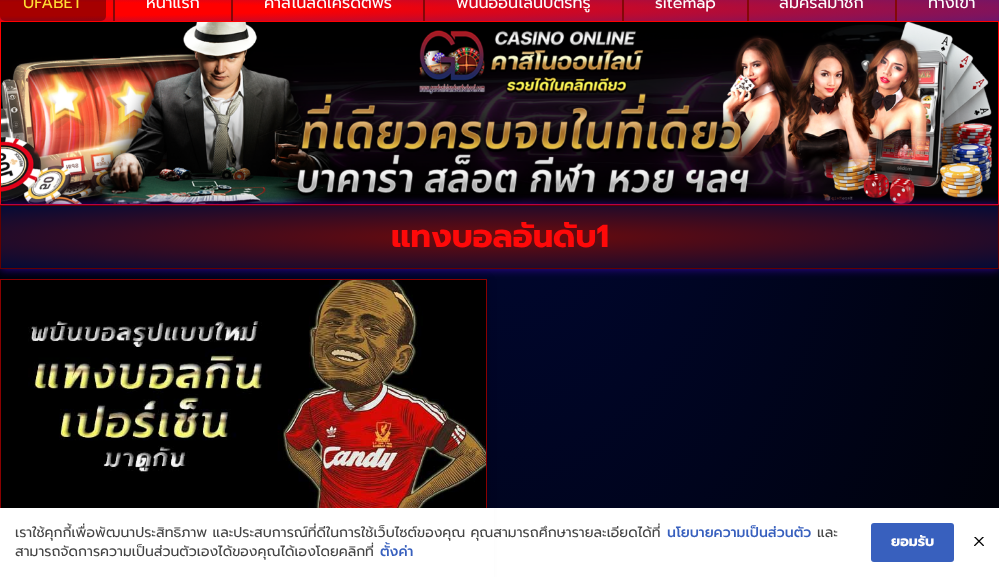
async function draw(canvas) {
  canvas.width = 999;
  canvas.height = 577;
  const ctx = canvas.getContext('2d');
  ctx.miterLimit = 4;
  ctx.fontKerning = 'normal';
  function label(s, x, y, font, color) {
    ctx.font = font;
    ctx.fillStyle = color;
    ctx.fillText(s, x, y);
  }
  function rect(x, y, w, h, color) {
    ctx.fillStyle = color;
    ctx.fillRect(x, y, w, h);
  }
  function roundedRect(x, y, w, h, r, color) {
    ctx.fillStyle = color;
    ctx.beginPath();
    ctx.roundRect(x, y, w, h, r);
    ctx.fill();
  }
  async function image(src, x, y, w, h) {
    const img = new Image();
    img.src = src;
    await img.decode();
    ctx.drawImage(img, x, y, w, h);
  }
  let gradient;

  rect(0, 0, 999, 577, '#fff');
  gradient = ctx.createRadialGradient(500, -14.72, 0, 500, -14.72, 706);
  gradient.addColorStop(0, '#000839');
  gradient.addColorStop(1, '#000');
  ctx.fillStyle = gradient;
  ctx.beginPath();
  ctx.rect(0, 269, 999, 239);
  ctx.save();
  ctx.clip();
  ctx.scale(1, 1247 / 706);
  ctx.fillRect(0, 0, 999, 327);
  ctx.restore();
  gradient = ctx.createRadialGradient(0, 385.36, 0, 0, 385.36, 1413);
  gradient.addColorStop(0.21, '#f00');
  gradient.addColorStop(1, '#391e91');
  ctx.fillStyle = gradient;
  ctx.beginPath();
  ctx.rect(0, 0, 999, 21);
  ctx.save();
  ctx.clip();
  ctx.scale(1, 33 / 1413);
  ctx.fillRect(0, 0, 999, 24707);
  ctx.restore();
  roundedRect(0, -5, 106, 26, 5, '#00000059');
  label('UFABET', 23, 8, '16px Prompt', '#ffdd34');
  rect(113, 0, 2, 21, '#830808');
  label('หน้าแรก', 146, 8, '16px Prompt', '#fdfdfd');
  rect(231, 0, 2, 21, '#830808');
  label('คาสิโนสดเครดิตฟรี', 264, 8, '16px Prompt', '#fdfdfd');
  rect(423, 0, 2, 21, '#830808');
  label('พนันออนไลน์บัตรทรู', 456, 8, '16px Prompt', '#fdfdfd');
  rect(622, 0, 2, 21, '#830808');
  label('sitemap', 655, 8, '16px Prompt', '#fdfdfd');
  rect(747, 0, 2, 21, '#830808');
  label('สมัครสมาชิก', 779, 8, '16px Prompt', '#fdfdfd');
  rect(895, 0, 2, 21, '#830808');
  label('ทางเข้า', 928, 8, '16px Prompt', '#fdfdfd');
  ctx.strokeStyle = '#f00';
  ctx.strokeRect(0.5, 21.5, 998, 183);
  await image('assets/img1.png', 1, 22, 997, 182);
  ctx.fillStyle = '#3e05b9d1';
  ctx.filter = 'blur(5px)';
  ctx.beginPath();
  ctx.rect(0, 205, 999, 64);
  ctx.fill();
  ctx.filter = 'none';
  gradient = ctx.createRadialGradient(500, 3797.39, 0, 500, 3797.39, 705);
  gradient.addColorStop(0, '#6e0b0b');
  gradient.addColorStop(1, '#040b36');
  ctx.fillStyle = gradient;
  ctx.beginPath();
  ctx.rect(1, 206, 997, 62);
  ctx.save();
  ctx.clip();
  ctx.scale(1, 44 / 705);
  ctx.fillRect(0, 0, 999, 9246);
  ctx.restore();
  ctx.strokeStyle = '#620000';
  ctx.strokeRect(0.5, 205.5, 998, 63);
  label('แทงบอลอันดับ1', 391, 247, 'bold 32px Prompt', '#ff0909');
  ctx.fillStyle = '#00000026';
  ctx.filter = 'blur(5px)';
  ctx.beginPath();
  ctx.rect(0, 279, 487, 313);
  ctx.fill();
  ctx.filter = 'none';
  ctx.strokeStyle = '#8a0000';
  ctx.strokeRect(0.5, 279.5, 486, 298);
  await image('assets/img2.png', 1, 280, 485, 228);
  rect(0, 508, 494, 69, '#fff');
  label('เราใช้คุกกี้เพื่อพัฒนาประสิทธิภาพ และประสบการณ์ที่ดีในการใช้เว็บไซต์ของคุณ คุณสามารถศึกษารายละเอียดได้ที่', 15, 537, '14px Prompt', '#444');
  label('นโยบายความเป็นส่วนตัว', 667, 537, '500 14px Prompt', '#3860be');
  label('และ', 817, 537, '14px Prompt', '#444');
  label('สามารถจัดการความเป็นส่วนตัวเองได้ของคุณได้เองโดยคลิกที่', 15, 556, '14px Prompt', '#444');
  label('ตั้งค่า', 380, 556, '500 14px Prompt', '#3860be');
  roundedRect(871, 523, 83, 39, 3, '#3860be');
  label('ยอมรับ', 891, 546, 'bold 14px Prompt', '#fdfdfd');
  await image('assets/img3.png', 974, 537, 10, 9);
}

draw(document.querySelector('canvas'));
